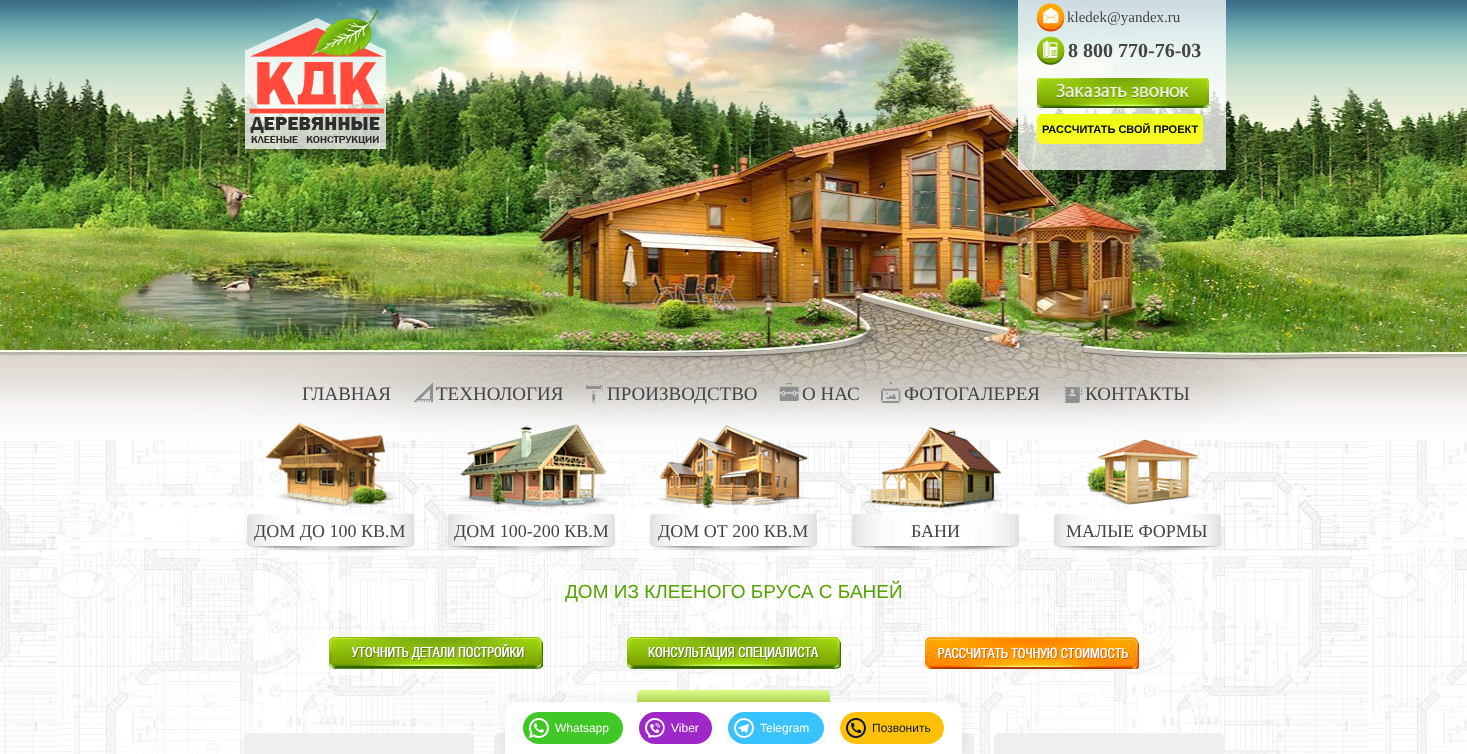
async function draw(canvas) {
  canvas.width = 1467;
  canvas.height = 754;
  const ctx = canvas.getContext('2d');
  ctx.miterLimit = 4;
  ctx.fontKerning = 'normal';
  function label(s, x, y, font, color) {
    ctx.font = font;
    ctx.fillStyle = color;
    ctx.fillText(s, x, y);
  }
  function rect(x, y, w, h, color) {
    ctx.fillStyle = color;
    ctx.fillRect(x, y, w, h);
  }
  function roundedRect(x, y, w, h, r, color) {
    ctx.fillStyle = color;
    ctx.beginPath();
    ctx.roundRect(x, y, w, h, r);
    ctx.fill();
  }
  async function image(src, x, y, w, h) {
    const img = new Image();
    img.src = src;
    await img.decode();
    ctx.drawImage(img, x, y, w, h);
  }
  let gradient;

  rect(0, 0, 1467, 754, '#fff');
  await image('assets/img1.png', 0, 440, 1467, 314);
  await image('assets/img2.png', 0, 0, 1467, 440);
  await image('assets/img3.png', 245, 8, 141, 141);
  rect(1018, 0, 208, 170, '#ffffffbf');
  await image('assets/img4.png', 1037, 3, 28, 29);
  label('kledek@yandex.ru', 1067, 22, '15px Liberation Serif', '#444');
  await image('assets/img5.png', 1037, 36, 28, 29);
  label('8 800 770-76-03', 1068, 57, 'bold 20px Liberation Serif', '#444');
  await image('assets/img6.png', 1037, 78, 172, 30);
  gradient = ctx.createLinearGradient(1037, 114, 1037, 144);
  gradient.addColorStop(0.05, '#eafe0d');
  gradient.addColorStop(1, '#faf826');
  ctx.fillStyle = gradient;
  ctx.beginPath();
  ctx.roundRect(1037, 114, 166, 30, 5);
  ctx.fill();
  label('РАССЧИТАТЬ СВОЙ ПРОЕКТ', 1042, 133, 'bold 11px Liberation Sans', '#050505');
  label('ГЛАВНАЯ', 302, 400, '19px Liberation Serif', '#444');
  await image('assets/img7.png', 413, 382, 20, 20);
  label('ТЕХНОЛОГИЯ', 436, 400, '19px Liberation Serif', '#444');
  await image('assets/img8.png', 586, 384, 17, 19);
  label('ПРОИЗВОДСТВО', 607, 400, '19px Liberation Serif', '#444');
  await image('assets/img9.png', 779, 383, 20, 18);
  label('О НАС', 802, 400, '19px Liberation Serif', '#444');
  await image('assets/img10.png', 881, 382, 20, 21);
  label('ФОТОГАЛЕРЕЯ', 904, 400, '19px Liberation Serif', '#444');
  await image('assets/img11.png', 1064, 384, 18, 19);
  label('КОНТАКТЫ', 1085, 400, '19px Liberation Serif', '#444');
  await image('assets/img12.png', 265, 422, 131, 85);
  await image('assets/img13.png', 246, 514, 169, 39);
  label('ДОМ ДО 100 КВ.М', 254, 537, '18px Liberation Serif', '#444');
  await image('assets/img14.png', 456, 423, 153, 86);
  await image('assets/img15.png', 447, 514, 169, 39);
  label('ДОМ 100-200 КВ.М', 454, 537, '18px Liberation Serif', '#444');
  await image('assets/img16.png', 656, 425, 154, 84);
  await image('assets/img17.png', 649, 514, 169, 39);
  label('ДОМ ОТ 200 КВ.М', 658, 537, '18px Liberation Serif', '#444');
  await image('assets/img18.png', 861, 427, 144, 82);
  await image('assets/img19.png', 851, 514, 169, 39);
  label('БАНИ', 911, 537, '18px Liberation Serif', '#444');
  await image('assets/img20.png', 1086, 439, 112, 66);
  await image('assets/img21.png', 1053, 514, 169, 39);
  label('МАЛЫЕ ФОРМЫ', 1066, 537, '18px Liberation Serif', '#444');
  label('ДОМ ИЗ КЛЕЕНОГО БРУСА С БАНЕЙ', 565, 598, '19px Liberation Sans', '#54a300');
  await image('assets/img22.png', 329, 637, 214, 32);
  await image('assets/img23.png', 627, 637, 214, 32);
  await image('assets/img24.png', 925, 637, 214, 32);
  gradient = ctx.createLinearGradient(637, 690, 637, 720);
  gradient.addColorStop(0.05, '#daf883');
  gradient.addColorStop(1, '#7cad0d');
  ctx.fillStyle = gradient;
  ctx.beginPath();
  ctx.roundRect(637, 690, 193, 30, 5);
  ctx.fill();
  roundedRect(244, 733, 230, 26, 5, '#efefef');
  roundedRect(494, 733, 230, 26, 5, '#efefef');
  roundedRect(744, 733, 230, 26, 5, '#efefef');
  roundedRect(994, 733, 230, 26, 5, '#efefef');
  ctx.fillStyle = '#042d3e0d';
  ctx.filter = 'blur(5px)';
  ctx.beginPath();
  ctx.roundRect(501, 698, 465, 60, 14);
  ctx.fill();
  ctx.filter = 'none';
  ctx.fillStyle = '#fff';
  ctx.beginPath();
  ctx.roundRect(505, 702, 457, 52, [10, 10, 0, 0]);
  ctx.fill();
  roundedRect(523, 712, 100, 32, 16, '#40c827');
  await image('assets/img25.png', 529, 718, 20, 20);
  label('Whatsapp', 555, 732, '12px Liberation Sans', '#fff');
  roundedRect(639, 712, 73, 32, 16, '#9e27c8');
  await image('assets/img26.png', 645, 718, 20, 20);
  label('Viber', 671, 732, '12px Liberation Sans', '#fff');
  roundedRect(728, 712, 96, 32, 16, '#38c2ff');
  await image('assets/img27.png', 734, 718, 20, 20);
  label('Telegram', 760, 732, '12px Liberation Sans', '#fff');
  roundedRect(840, 712, 104, 32, 16, '#ffc107');
  await image('assets/img28.png', 846, 718, 20, 20);
  label('Позвонить', 872, 732, '12px Liberation Sans', '#0e1935');
}

draw(document.querySelector('canvas'));
